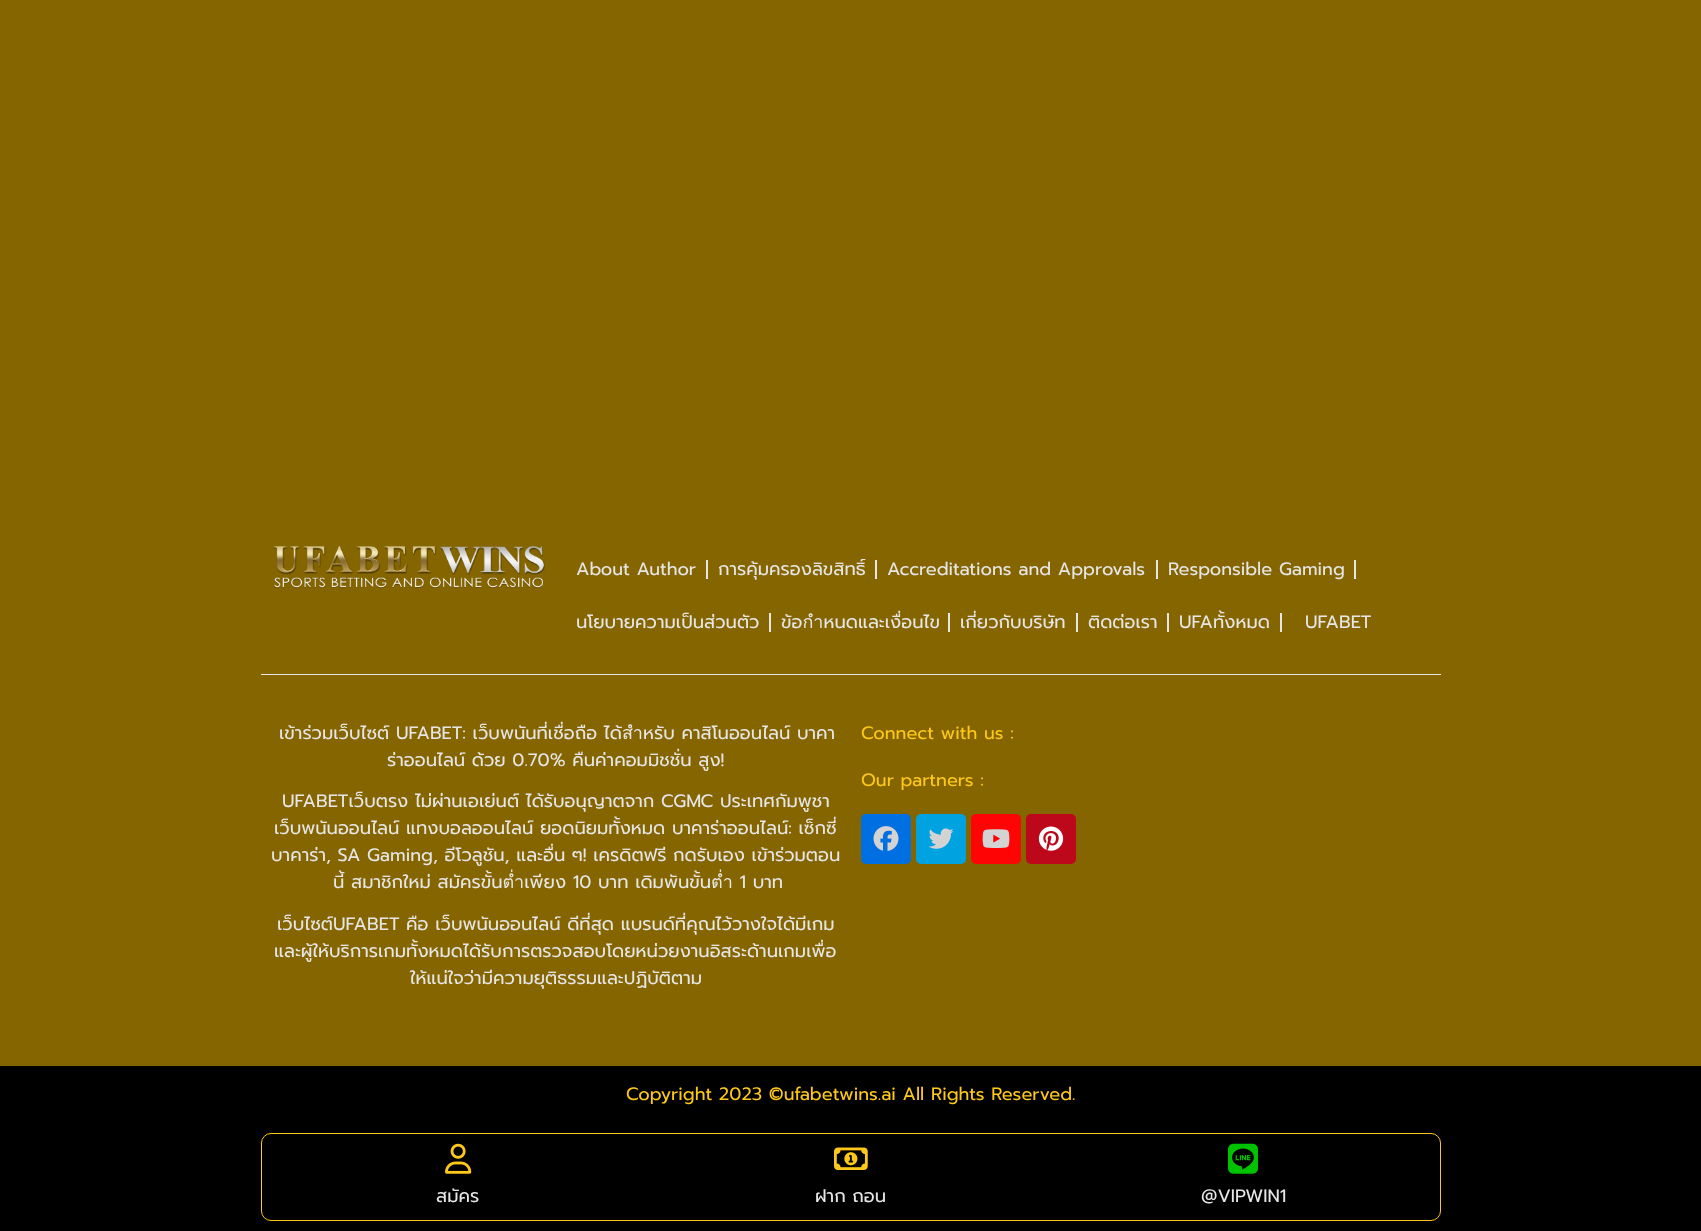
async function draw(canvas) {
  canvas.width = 1701;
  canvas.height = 1231;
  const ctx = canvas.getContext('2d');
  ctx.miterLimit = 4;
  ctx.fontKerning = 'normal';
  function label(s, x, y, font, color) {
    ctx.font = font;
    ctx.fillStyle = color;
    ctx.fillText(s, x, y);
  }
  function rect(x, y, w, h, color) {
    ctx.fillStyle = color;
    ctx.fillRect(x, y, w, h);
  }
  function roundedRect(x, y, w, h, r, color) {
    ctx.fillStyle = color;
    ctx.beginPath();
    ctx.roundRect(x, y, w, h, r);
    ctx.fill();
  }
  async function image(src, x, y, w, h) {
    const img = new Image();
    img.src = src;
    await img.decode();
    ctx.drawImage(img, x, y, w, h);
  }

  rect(0, 0, 1701, 1231, '#000');
  rect(0, 0, 1701, 1066, '#856500');
  await image('assets/img1.png', 273, 546, 272, 43);
  label('About Author', 576, 575, '18px Prompt', '#e6e6e6');
  rect(706, 560, 2, 19, '#e6e6e6');
  label('การคุ้มครองลิขสิทธิ์', 718, 575, '18px Prompt', '#e6e6e6');
  rect(875, 560, 2, 19, '#e6e6e6');
  label('Accreditations and Approvals', 887, 575, '18px Prompt', '#e6e6e6');
  rect(1156, 560, 2, 19, '#e6e6e6');
  label('Responsible Gaming', 1168, 575, '18px Prompt', '#e6e6e6');
  rect(1354, 560, 2, 19, '#e6e6e6');
  label('นโยบายความเป็นส่วนตัว', 576, 628, '18px Prompt', '#e6e6e6');
  rect(769, 613, 2, 19, '#e6e6e6');
  label('ข้อกำหนดและเงื่อนไข', 781, 628, '18px Prompt', '#e6e6e6');
  rect(948, 613, 2, 19, '#e6e6e6');
  label('เกี่ยวกับบริษัท', 960, 628, '18px Prompt', '#e6e6e6');
  rect(1076, 613, 2, 19, '#e6e6e6');
  label('ติดต่อเรา', 1088, 628, '18px Prompt', '#e6e6e6');
  rect(1167, 613, 2, 19, '#e6e6e6');
  label('UFAทั้งหมด', 1179, 628, '18px Prompt', '#e6e6e6');
  rect(1280, 613, 2, 19, '#e6e6e6');
  label('UFABET', 1305, 628, '18px Prompt', '#e6e6e6');
  rect(261, 674, 1180, 1, '#e6e6e6');
  label('เข้าร่วมเว็บไซต์ UFABET: เว็บพนันที่เชื่อถือ ได้สำหรับ คาสิโนออนไลน์ บาคา', 279, 739, '18px Prompt', '#e6e6e6');
  label('ร่าออนไลน์ ด้วย 0.70% คืนค่าคอมมิชชั่น สูง!', 387, 766, '18px Prompt', '#e6e6e6');
  label('UFABETเว็บตรง ไม่ผ่านเอเย่นต์ ได้รับอนุญาตจาก CGMC ประเทศกัมพูชา', 282, 807, '18px Prompt', '#e6e6e6');
  label('เว็บพนันออนไลน์ แทงบอลออนไลน์ ยอดนิยมทั้งหมด บาคาร่าออนไลน์: เซ็กซี่', 274, 834, '18px Prompt', '#e6e6e6');
  label('บาคาร่า, SA Gaming, อีโวลูชัน, และอื่น ๆ! เครดิตฟรี กดรับเอง เข้าร่วมตอน', 271, 861, '18px Prompt', '#e6e6e6');
  label('นี้ สมาชิกใหม่ สมัครขั้นต่ำเพียง 10 บาท เดิมพันขั้นต่ำ 1 บาท', 333, 888, '18px Prompt', '#e6e6e6');
  label('เว็บไซต์UFABET คือ เว็บพนันออนไลน์ ดีที่สุด แบรนด์ที่คุณไว้วางใจได้มีเกม', 277, 930, '18px Prompt', '#e6e6e6');
  label('และผู้ให้บริการเกมทั้งหมดได้รับการตรวจสอบโดยหน่วยงานอิสระด้านเกมเพื่อ', 274, 957, '18px Prompt', '#e6e6e6');
  label('ให้แน่ใจว่ามีความยุติธรรมและปฏิบัติตาม', 410, 984, '18px Prompt', '#e6e6e6');
  label('Connect with us :', 861, 739, '18px Prompt', '#fec81a');
  label('Our partners :', 861, 786, '18px Prompt', '#fec81a');
  roundedRect(861, 814, 50, 50, 5, '#006fe2');
  await image('assets/img2.png', 873, 826, 26, 25);
  roundedRect(916, 814, 50, 50, 5, '#00a3e0');
  await image('assets/img3.png', 928, 828, 26, 21);
  roundedRect(971, 814, 50, 50, 5, '#ff0404');
  await image('assets/img4.png', 982, 829, 28, 19);
  roundedRect(1026, 814, 50, 50, 5, '#bd081c');
  await image('assets/img5.png', 1038, 826, 26, 25);
  label('Copyright 2023 ©ufabetwins.ai All Rights Reserved.', 626, 1100, '18px Prompt', '#fec81a');
  ctx.beginPath();
  ctx.roundRect(261.5, 1133.5, 1179, 87, 9.5);
  ctx.strokeStyle = '#fec81a';
  ctx.stroke();
  await image('assets/img6.png', 445, 1143, 27, 31);
  label('สมัคร', 436, 1202, '18px Prompt', '#e6e6e6');
  await image('assets/img7.png', 834, 1147, 34, 23);
  label('ฝาก ถอน', 815, 1202, '18px Prompt', '#e6e6e6');
  await image('assets/img8.png', 1228, 1143, 30, 31);
  label('@VIPWIN1', 1201, 1202, '18px Prompt', '#e6e6e6');
}

draw(document.querySelector('canvas'));
